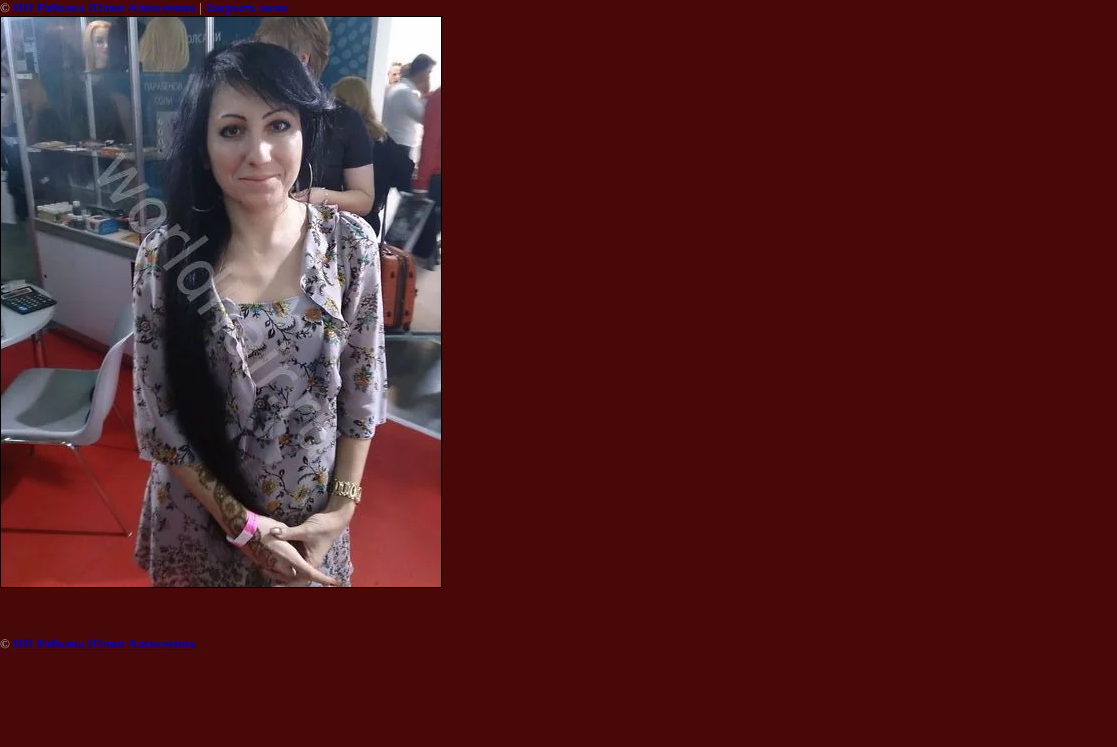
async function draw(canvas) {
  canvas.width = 1117;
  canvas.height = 747;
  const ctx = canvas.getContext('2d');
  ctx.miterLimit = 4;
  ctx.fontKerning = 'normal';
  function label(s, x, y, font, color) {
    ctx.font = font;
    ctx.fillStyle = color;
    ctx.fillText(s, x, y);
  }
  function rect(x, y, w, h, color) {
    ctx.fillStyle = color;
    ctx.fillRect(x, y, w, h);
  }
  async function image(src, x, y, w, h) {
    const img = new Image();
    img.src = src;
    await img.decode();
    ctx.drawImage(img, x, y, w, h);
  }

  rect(0, 0, 1117, 747, '#480808');
  label('©', 0, 12, '13px Liberation Serif', '#bbb6b5');
  label('ИП Рябкова Юлия Алексеевна', 13, 12, 'bold 13px Liberation Serif', '#00c');
  rect(13, 13, 183, 1, '#00c');
  label('|', 199, 12, '13px Liberation Serif', '#bbb6b5');
  rect(205, 13, 83, 1, '#00c');
  label('Закрыть окно', 205, 12, 'bold 13px Liberation Serif', '#00c');
  ctx.strokeStyle = '#000';
  ctx.strokeRect(0.5, 16.5, 441, 571);
  await image('assets/img1.png', 1, 17, 440, 570);
  label('©', 0, 648, '13px Liberation Serif', '#bbb6b5');
  label('ИП Рябкова Юлия Алексеевна', 13, 648, 'bold 13px Liberation Serif', '#00c');
  rect(13, 649, 183, 1, '#00c');
}

draw(document.querySelector('canvas'));
